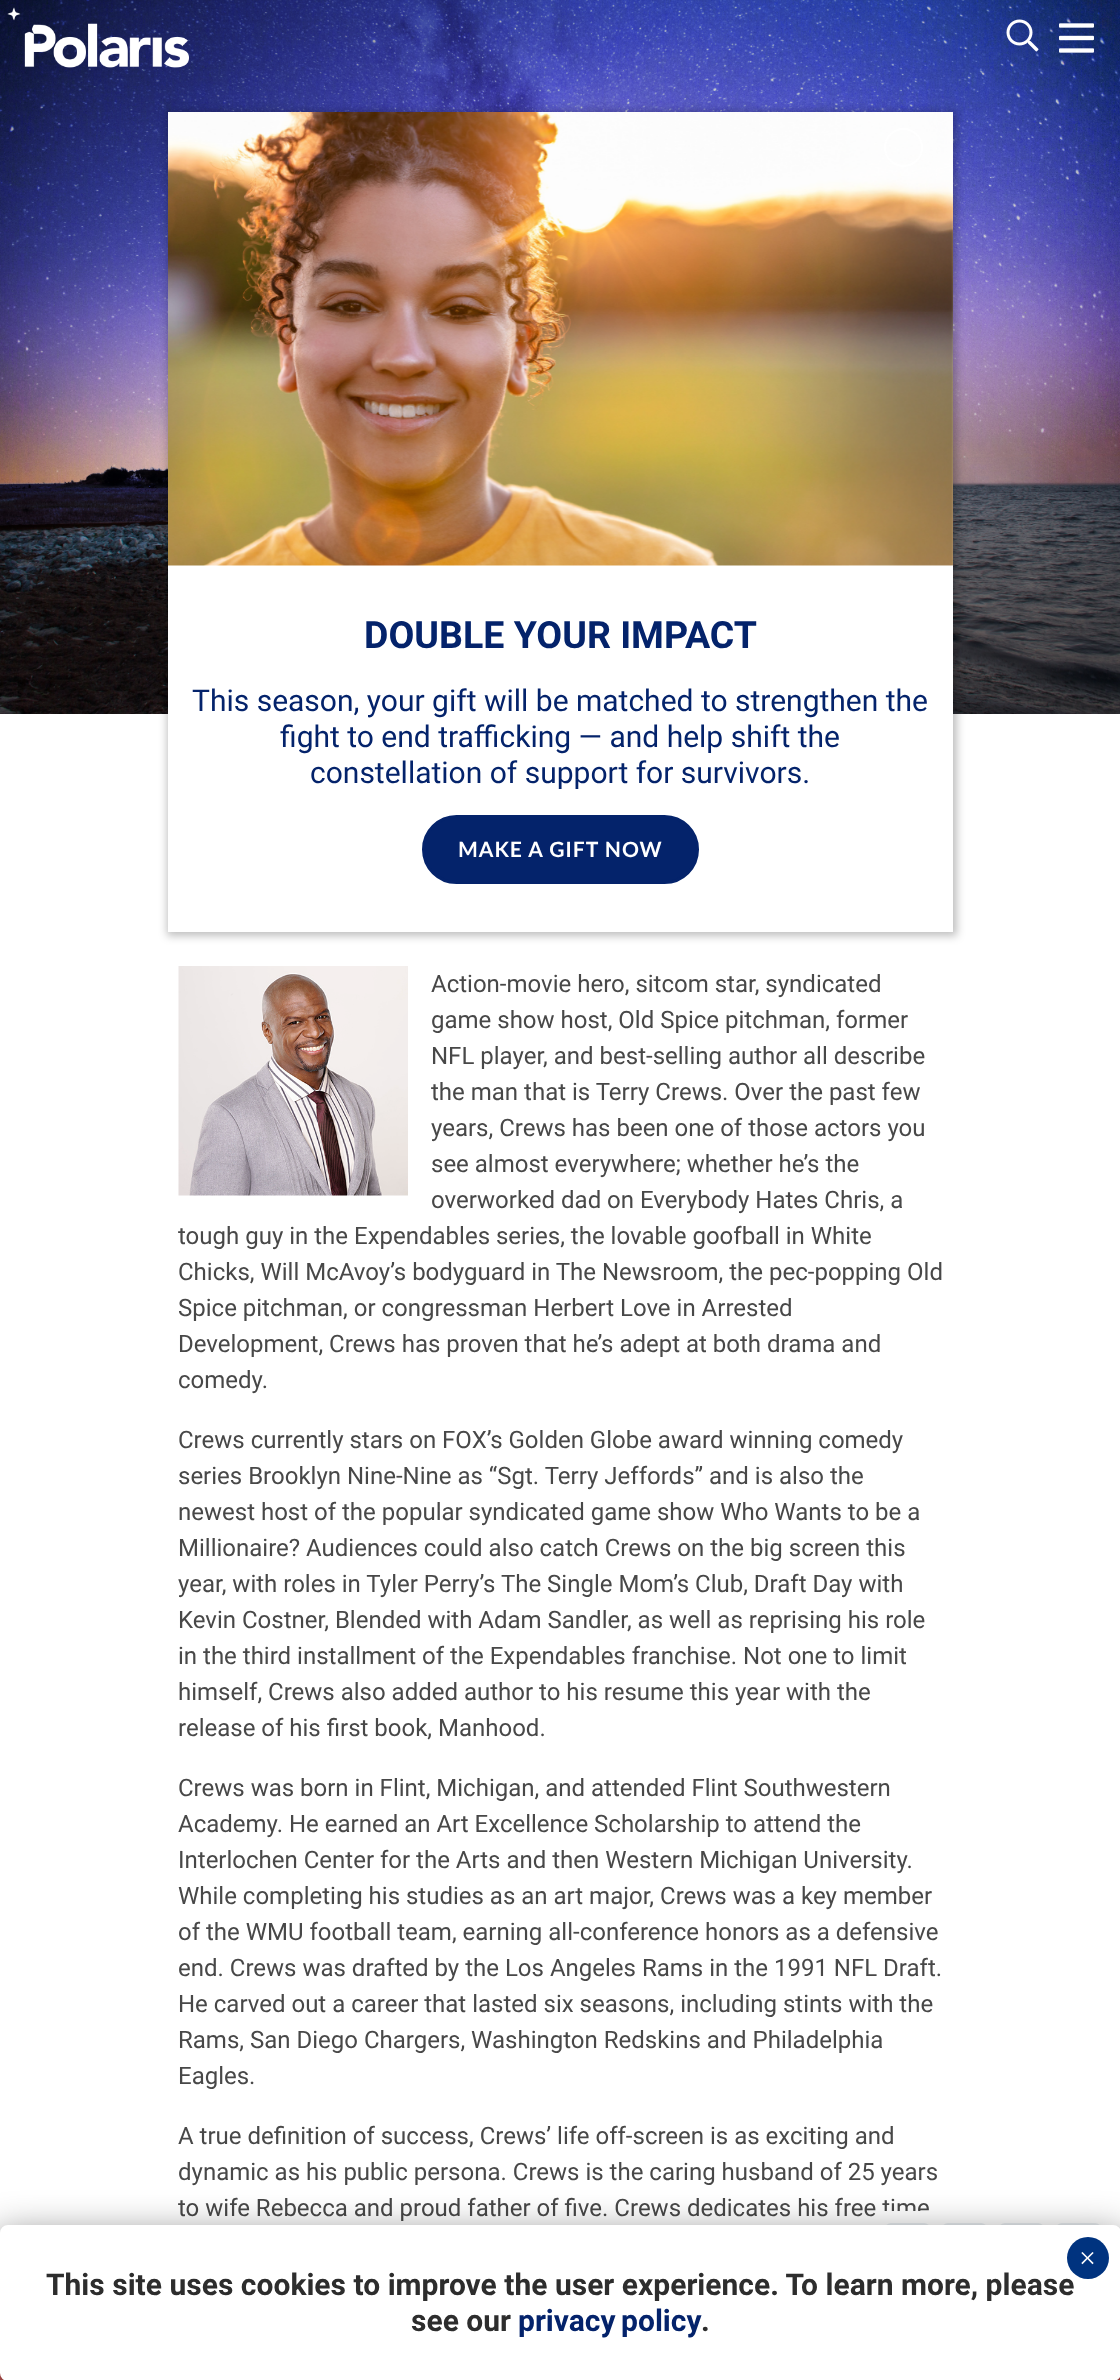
async function draw(canvas) {
  canvas.width = 1120;
  canvas.height = 2380;
  const ctx = canvas.getContext('2d');
  ctx.miterLimit = 4;
  ctx.fontKerning = 'normal';
  function label(s, x, y, font, color) {
    ctx.font = font;
    ctx.fillStyle = color;
    ctx.fillText(s, x, y);
  }
  function rect(x, y, w, h, color) {
    ctx.fillStyle = color;
    ctx.fillRect(x, y, w, h);
  }
  function roundedRect(x, y, w, h, r, color) {
    ctx.fillStyle = color;
    ctx.beginPath();
    ctx.roundRect(x, y, w, h, r);
    ctx.fill();
  }
  async function image(src, x, y, w, h) {
    const img = new Image();
    img.src = src;
    await img.decode();
    ctx.drawImage(img, x, y, w, h);
  }

  rect(0, 0, 1120, 2380, '#fff');
  await image('assets/img1.png', 0, 0, 1120, 714);
  await image('assets/img2.png', 7, 7, 182, 61);
  await image('assets/img3.png', 1006, 19, 33, 33);
  await image('assets/img4.png', 1059, 23, 35, 30);
  ctx.fillStyle = '#00000040';
  ctx.filter = 'blur(4px)';
  ctx.beginPath();
  ctx.rect(167, 111, 790, 825);
  ctx.fill();
  ctx.filter = 'none';
  rect(168, 113, 785, 819, '#fff');
  await image('assets/img5.png', 168, 112, 785, 454);
  ctx.beginPath();
  ctx.arc(903.5, 147.5, 18.5, 0, 2 * Math.PI);
  ctx.strokeStyle = '#fff';
  ctx.lineWidth = 2;
  ctx.stroke();
  label('DOUBLE YOUR IMPACT', 364, 648, 'bold 37.5px Roboto', '#04236b');
  label('This season, your gift will be matched to strengthen the', 192, 711, '30px Roboto', '#04236b');
  label('fight to end trafficking — and help shift the', 280, 747, '30px Roboto', '#04236b');
  label('constellation of support for survivors.', 310, 783, '30px Roboto', '#04236b');
  ctx.beginPath();
  ctx.roundRect(423.5, 816.5, 274, 66, 33);
  ctx.fill();
  ctx.strokeStyle = '#04236b';
  ctx.lineWidth = 3;
  ctx.stroke();
  ctx.letterSpacing = '1px';
  label('MAKE A GIFT NOW', 458, 857, 'bold 21px Lato', '#fff');
  await image('assets/img6.png', 178, 966, 230, 230);
  ctx.letterSpacing = '0px';
  label('Action-movie hero, sitcom star, syndicated', 431, 992, '24px Roboto', '#484848');
  label('game show host, Old Spice pitchman, former', 431, 1028, '24px Roboto', '#484848');
  label('NFL player, and best-selling author all describe', 431, 1064, '24px Roboto', '#484848');
  label('the man that is Terry Crews. Over the past few', 431, 1100, '24px Roboto', '#484848');
  label('years, Crews has been one of those actors you', 431, 1136, '24px Roboto', '#484848');
  label('see almost everywhere; whether he’s the', 431, 1172, '24px Roboto', '#484848');
  label('overworked dad on Everybody Hates Chris, a', 431, 1208, '24px Roboto', '#484848');
  label('tough guy in the Expendables series, the lovable goofball in White', 178, 1244, '24px Roboto', '#484848');
  label('Chicks, Will McAvoy’s bodyguard in The Newsroom, the pec-popping Old', 178, 1280, '24px Roboto', '#484848');
  label('Spice pitchman, or congressman Herbert Love in Arrested', 178, 1316, '24px Roboto', '#484848');
  label('Development, Crews has proven that he’s adept at both drama and', 178, 1352, '24px Roboto', '#484848');
  label('comedy.', 178, 1388, '24px Roboto', '#484848');
  label('Crews currently stars on FOX’s Golden Globe award winning comedy', 178, 1448, '24px Roboto', '#484848');
  label('series Brooklyn Nine-Nine as “Sgt. Terry Jeffords” and is also the', 178, 1484, '24px Roboto', '#484848');
  label('newest host of the popular syndicated game show Who Wants to be a', 178, 1520, '24px Roboto', '#484848');
  label('Millionaire? Audiences could also catch Crews on the big screen this', 178, 1556, '24px Roboto', '#484848');
  label('year, with roles in Tyler Perry’s The Single Mom’s Club, Draft Day with', 178, 1592, '24px Roboto', '#484848');
  label('Kevin Costner, Blended with Adam Sandler, as well as reprising his role', 178, 1628, '24px Roboto', '#484848');
  label('in the third installment of the Expendables franchise. Not one to limit', 178, 1664, '24px Roboto', '#484848');
  label('himself, Crews also added author to his resume this year with the', 178, 1700, '24px Roboto', '#484848');
  label('release of his first book, Manhood.', 178, 1736, '24px Roboto', '#484848');
  label('Crews was born in Flint, Michigan, and attended Flint Southwestern', 178, 1796, '24px Roboto', '#484848');
  label('Academy. He earned an Art Excellence Scholarship to attend the', 178, 1832, '24px Roboto', '#484848');
  label('Interlochen Center for the Arts and then Western Michigan University.', 178, 1868, '24px Roboto', '#484848');
  label('While completing his studies as an art major, Crews was a key member', 178, 1904, '24px Roboto', '#484848');
  label('of the WMU football team, earning all-conference honors as a defensive', 178, 1940, '24px Roboto', '#484848');
  label('end. Crews was drafted by the Los Angeles Rams in the 1991 NFL Draft.', 178, 1976, '24px Roboto', '#484848');
  label('He carved out a career that lasted six seasons, including stints with the', 178, 2012, '24px Roboto', '#484848');
  label('Rams, San Diego Chargers, Washington Redskins and Philadelphia', 178, 2048, '24px Roboto', '#484848');
  label('Eagles.', 178, 2084, '24px Roboto', '#484848');
  label('A true definition of success, Crews’ life off-screen is as exciting and', 178, 2144, '24px Roboto', '#484848');
  label('dynamic as his public persona. Crews is the caring husband of 25 years', 178, 2180, '24px Roboto', '#484848');
  label('to wife Rebecca and proud father of five. Crews dedicates his free time', 178, 2216, '24px Roboto', '#484848');
  roundedRect(873, 2211, 240, 69, 9, '#fff');
  roundedRect(885, 2223, 45, 45, 6, '#eaeff2');
  roundedRect(942, 2223, 45, 45, 6, '#eaeff2');
  roundedRect(999, 2223, 45, 45, 6, '#eaeff2');
  roundedRect(1056, 2223, 45, 45, 6, '#eaeff2');
  rect(0, 2373, 1120, 7, '#d45d59');
  ctx.fillStyle = '#02020280';
  ctx.filter = 'blur(19px)';
  ctx.beginPath();
  ctx.roundRect(-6, 2234, 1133, 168, 14);
  ctx.fill();
  ctx.filter = 'none';
  roundedRect(0, 2225, 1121, 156, 8, '#fff');
  label('This site uses cookies to improve the user experience. To learn more, please', 46, 2295, 'bold 30px Roboto', '#2d2d2d');
  ctx.fillStyle = '#00337f';
  ctx.beginPath();
  ctx.arc(1088, 2258, 21, 0, 2 * Math.PI);
  ctx.fill();
  label('×', 1079, 2268, '30px Liberation Serif', '#fff');
  label('see our', 411, 2331, 'bold 30px Roboto', '#2d2d2d');
  ctx.wordSpacing = '-2px';
  label('privacy policy', 518, 2331, 'bold 30px Roboto', '#04236b');
  ctx.wordSpacing = '0px';
  label('.', 701, 2331, 'bold 30px Roboto', '#2d2d2d');
}

draw(document.querySelector('canvas'));
